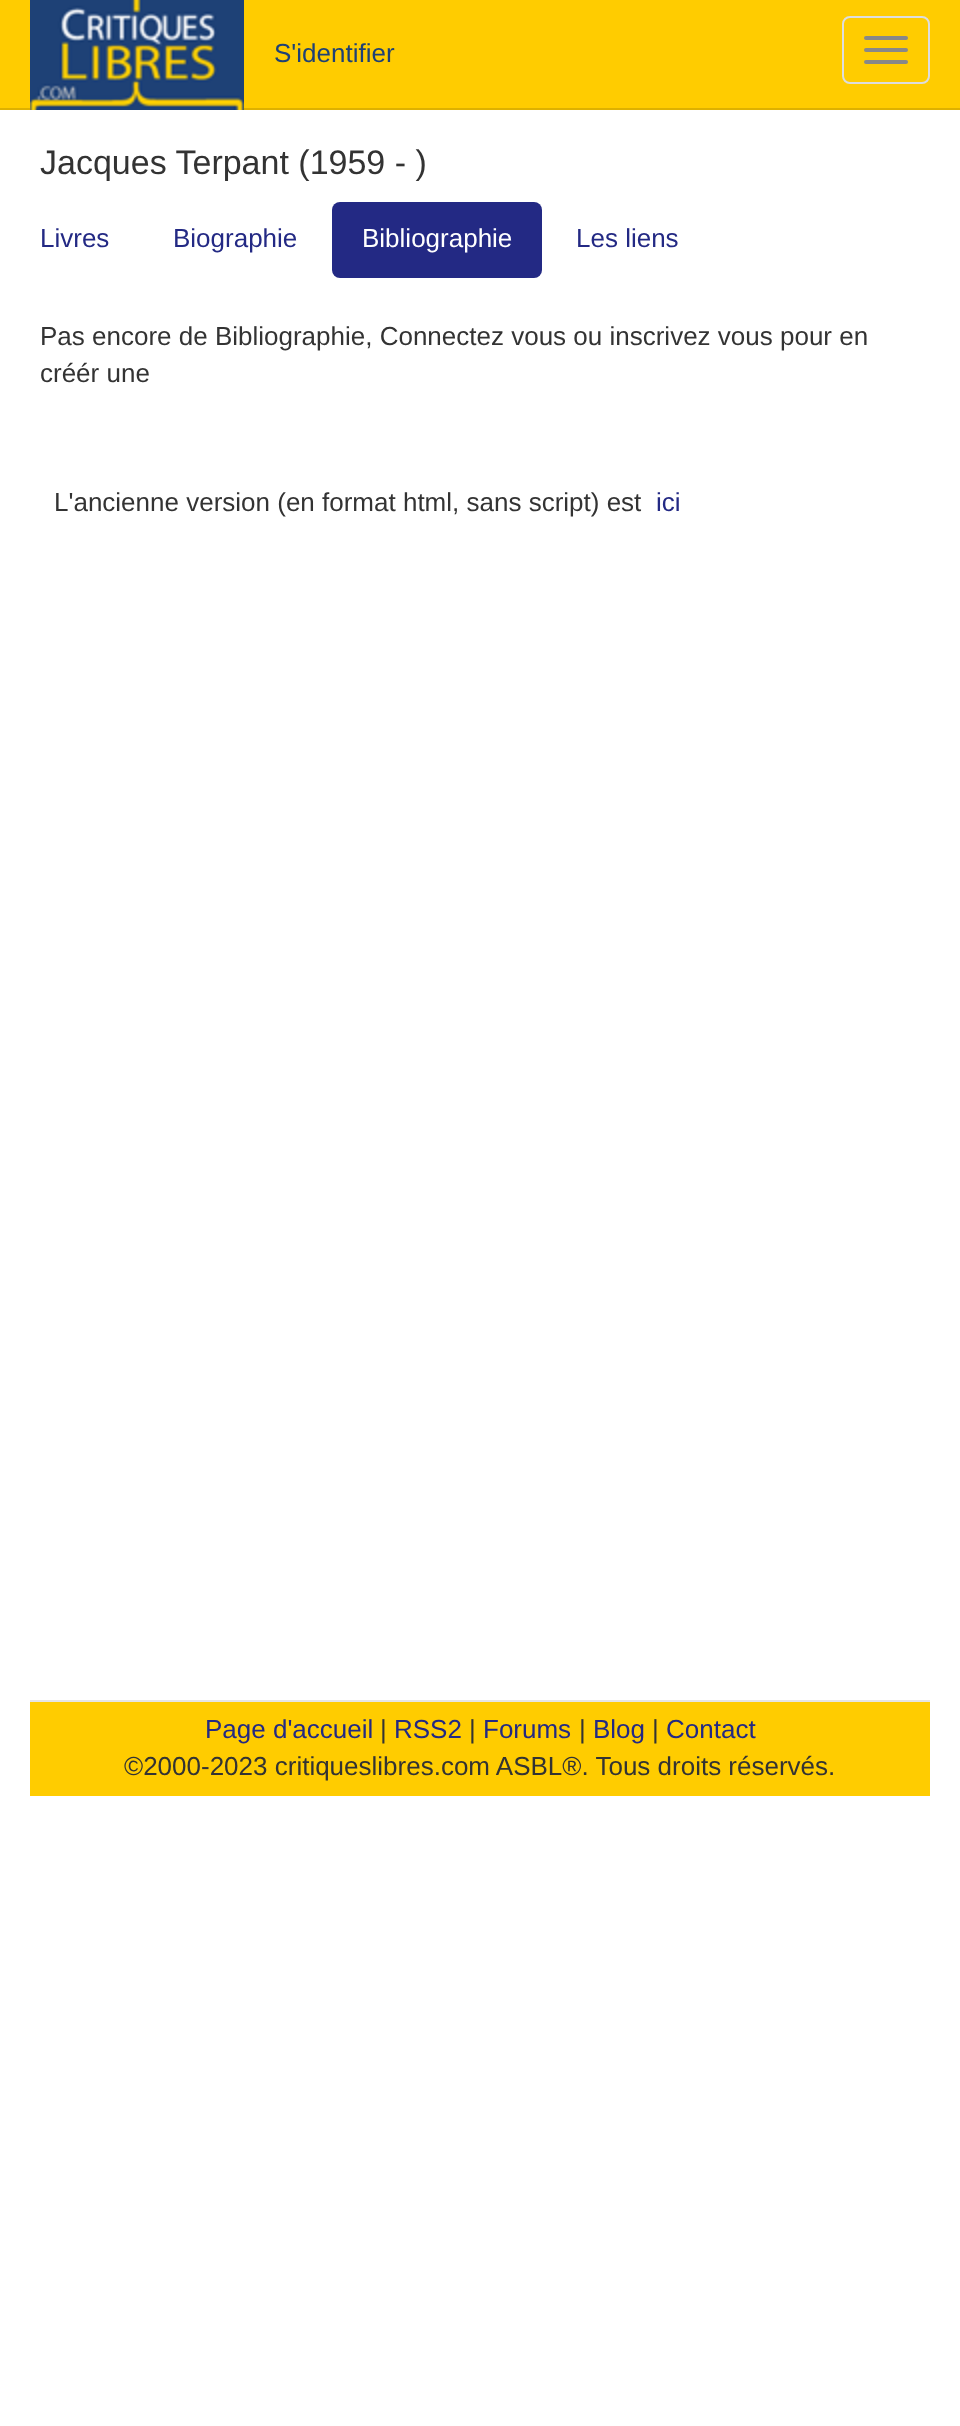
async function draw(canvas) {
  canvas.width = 960;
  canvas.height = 2426;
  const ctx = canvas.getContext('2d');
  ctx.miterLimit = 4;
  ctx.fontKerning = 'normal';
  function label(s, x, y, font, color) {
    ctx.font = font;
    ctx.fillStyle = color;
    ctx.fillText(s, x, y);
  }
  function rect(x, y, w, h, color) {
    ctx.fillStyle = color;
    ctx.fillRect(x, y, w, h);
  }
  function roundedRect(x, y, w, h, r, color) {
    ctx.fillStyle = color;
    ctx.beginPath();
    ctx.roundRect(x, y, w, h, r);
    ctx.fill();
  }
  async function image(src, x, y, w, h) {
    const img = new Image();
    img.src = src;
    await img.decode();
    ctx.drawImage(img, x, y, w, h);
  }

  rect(0, 0, 960, 2426, '#fff');
  rect(0, 0, 960, 108, '#fc0');
  rect(0, 108, 960, 2, '#deb100');
  await image('assets/img1.png', 30, 0, 214, 110);
  label('S\'identifier', 274, 62, '26px Liberation Sans', '#1e4176');
  ctx.beginPath();
  ctx.roundRect(843, 17, 86, 66, 7);
  ctx.strokeStyle = '#ddd';
  ctx.lineWidth = 2;
  ctx.stroke();
  roundedRect(864, 36, 44, 4, 2, '#888');
  roundedRect(864, 48, 44, 4, 2, '#888');
  roundedRect(864, 60, 44, 4, 2, '#888');
  label('Jacques Terpant (1959 - )', 40, 174, '34px Liberation Sans', '#333');
  label('Livres', 40, 247, '26px Liberation Sans', '#232984');
  label('Biographie', 173, 247, '26px Liberation Sans', '#232984');
  roundedRect(332, 202, 210, 76, 8, '#232984');
  label('Bibliographie', 362, 247, '26px Liberation Sans', '#fff');
  label('Les liens', 576, 247, '26px Liberation Sans', '#232984');
  label('Pas encore de Bibliographie, Connectez vous ou inscrivez vous pour en', 40, 345, '26px Liberation Sans', '#333');
  label('créér une', 40, 382, '26px Liberation Sans', '#333');
  label('L\'ancienne version (en format html, sans script) est', 54, 511, '26px Liberation Sans', '#333');
  label('ici', 656, 511, '26px Liberation Sans', '#232984');
  rect(30, 1702, 900, 94, '#fc0');
  rect(30, 1700, 900, 2, '#e5e5e5');
  label('Page d\'accueil', 205, 1738, '26px Liberation Sans', '#232984');
  label('|', 380, 1738, '26px Liberation Sans', '#333');
  label('RSS2', 394, 1738, '26px Liberation Sans', '#232984');
  label('|', 469, 1738, '26px Liberation Sans', '#333');
  label('Forums', 483, 1738, '26px Liberation Sans', '#232984');
  label('|', 579, 1738, '26px Liberation Sans', '#333');
  label('Blog', 593, 1738, '26px Liberation Sans', '#232984');
  label('|', 652, 1738, '26px Liberation Sans', '#333');
  label('Contact', 666, 1738, '26px Liberation Sans', '#232984');
  label('©2000-2023 critiqueslibres.com ASBL®. Tous droits réservés.', 124, 1775, '26px Liberation Sans', '#333');
}

draw(document.querySelector('canvas'));
